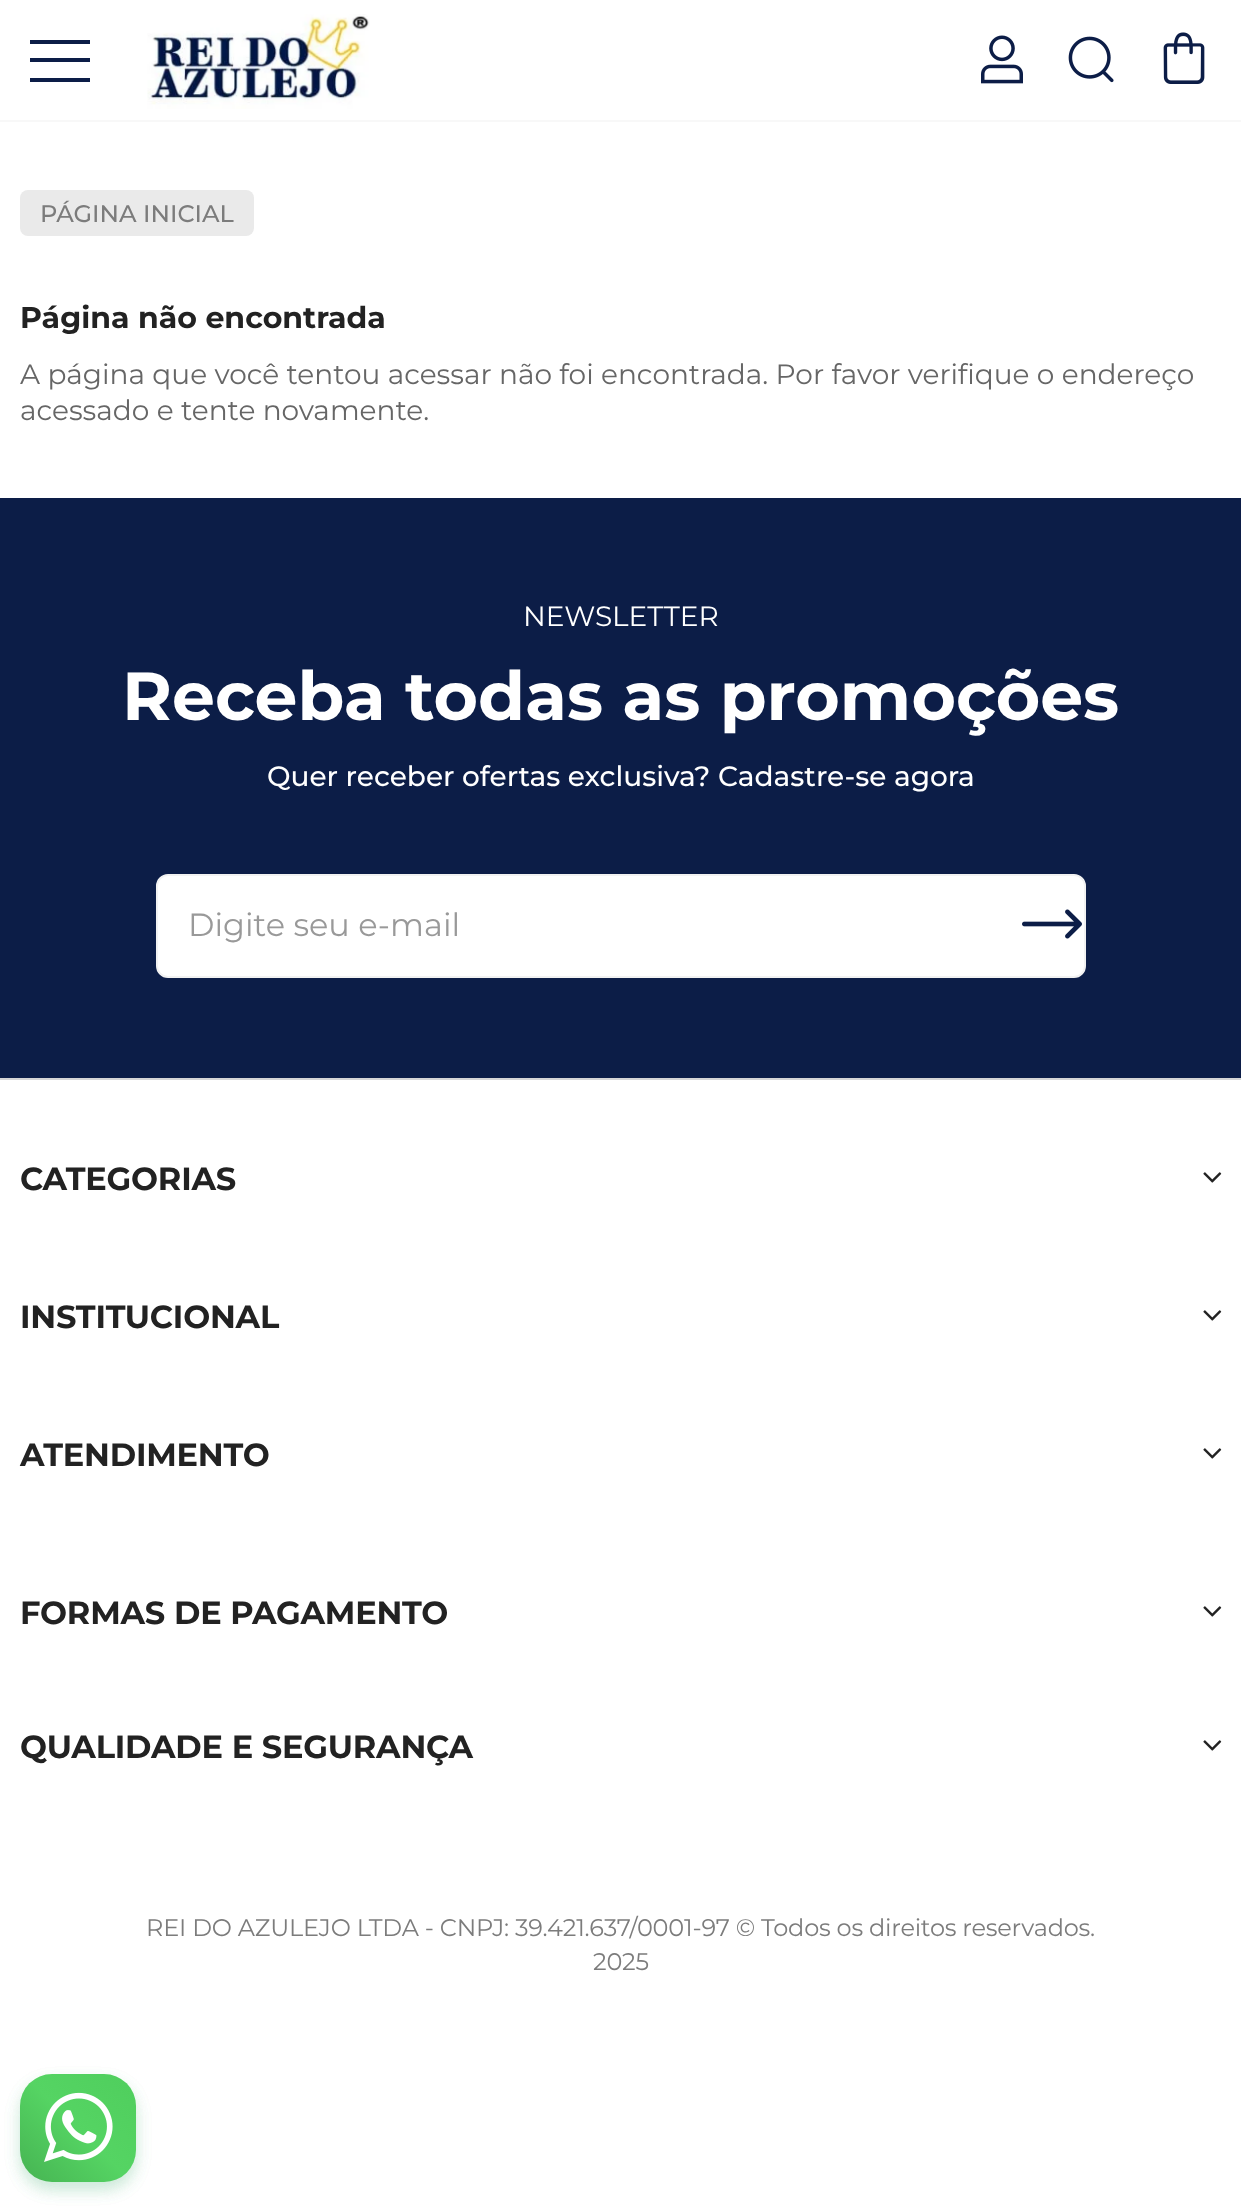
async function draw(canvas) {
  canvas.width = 1241;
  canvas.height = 2209;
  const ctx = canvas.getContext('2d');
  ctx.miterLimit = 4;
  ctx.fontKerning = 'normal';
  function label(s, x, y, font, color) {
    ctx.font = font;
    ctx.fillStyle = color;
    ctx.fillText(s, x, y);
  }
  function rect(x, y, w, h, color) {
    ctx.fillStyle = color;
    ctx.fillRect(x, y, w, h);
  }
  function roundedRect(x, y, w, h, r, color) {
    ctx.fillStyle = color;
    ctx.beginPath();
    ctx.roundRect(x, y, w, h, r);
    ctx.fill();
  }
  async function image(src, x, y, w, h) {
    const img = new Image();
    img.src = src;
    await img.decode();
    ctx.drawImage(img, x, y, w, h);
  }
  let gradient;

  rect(0, 0, 1241, 2209, '#fff');
  rect(0, 120, 1241, 2, '#f8f8f8');
  rect(30, 40, 60, 4, '#0c1d47');
  rect(30, 58, 60, 4, '#0c1d47');
  rect(30, 78, 60, 4, '#0c1d47');
  await image('assets/img1.png', 147, 14, 223, 95);
  await image('assets/img2.png', 981, 35, 42, 49);
  await image('assets/img3.png', 1068, 36, 46, 47);
  await image('assets/img4.png', 1163, 32, 42, 52);
  roundedRect(20, 190, 234, 46, 8, '#eaeaea');
  label('PÁGINA INICIAL', 40, 222, '500 24px Montserrat', '#7c7c7c');
  label('Página não encontrada', 20, 328, 'bold 30px Montserrat', '#222');
  label('A página que você tentou acessar não foi encontrada. Por favor verifique o endereço', 20, 384, '28px Montserrat', '#666');
  label('acessado e tente novamente.', 20, 420, '28px Montserrat', '#666');
  rect(0, 498, 1241, 580, '#0c1d47');
  label('NEWSLETTER', 523, 626, '28px Montserrat', '#fff');
  label('Receba todas as promoções', 122, 720, 'bold 68px Montserrat', '#fff');
  label('Quer receber ofertas exclusiva? Cadastre-se agora', 267, 786, '500 28px Montserrat', '#fff');
  ctx.beginPath();
  ctx.roundRect(157, 875, 928, 102, 11);
  ctx.fill();
  ctx.strokeStyle = '#f2f2f2';
  ctx.lineWidth = 2;
  ctx.stroke();
  label('Digite seu e-mail', 188, 936, '32px Montserrat', '#999');
  await image('assets/img5.png', 1022, 909, 60, 30);
  rect(0, 1078, 1241, 2, '#d6d6d6');
  ctx.letterSpacing = '-0.2px';
  label('CATEGORIAS', 20, 1190, 'bold 32px Montserrat', '#222');
  await image('assets/img6.png', 1203, 1172, 19, 11);
  label('INSTITUCIONAL', 20, 1328, 'bold 32px Montserrat', '#222');
  await image('assets/img6.png', 1203, 1310, 19, 11);
  label('ATENDIMENTO', 20, 1466, 'bold 32px Montserrat', '#222');
  await image('assets/img6.png', 1203, 1448, 19, 11);
  label('FORMAS DE PAGAMENTO', 20, 1624, 'bold 32px Montserrat', '#222');
  await image('assets/img6.png', 1203, 1606, 19, 11);
  label('QUALIDADE E SEGURANÇA', 20, 1758, 'bold 32px Montserrat', '#222');
  await image('assets/img6.png', 1203, 1740, 19, 11);
  label('REI DO AZULEJO LTDA - CNPJ: 39.421.637/0001-97 © Todos os direitos reservados.', 146, 1936, '24px Montserrat', '#7c7c7c');
  label('2025', 593, 1970, '24px Montserrat', '#7c7c7c');
  ctx.fillStyle = '#29a25921';
  ctx.filter = 'blur(8px)';
  ctx.beginPath();
  ctx.roundRect(20, 2082, 116, 108, 32);
  ctx.fill();
  ctx.filter = 'none';
  ctx.filter = 'blur(8px)';
  ctx.beginPath();
  ctx.roundRect(20, 2082, 116, 108, 32);
  ctx.fill();
  ctx.filter = 'none';
  gradient = ctx.createLinearGradient(22, 2184, 134, 2072);
  gradient.addColorStop(0, '#46b352');
  gradient.addColorStop(0.5, '#55d463');
  gradient.addColorStop(1, '#4fce5d');
  ctx.fillStyle = gradient;
  ctx.beginPath();
  ctx.roundRect(20, 2074, 116, 108, 32);
  ctx.fill();
  await image('assets/img7.png', 44, 2092, 69, 70);
}

draw(document.querySelector('canvas'));
